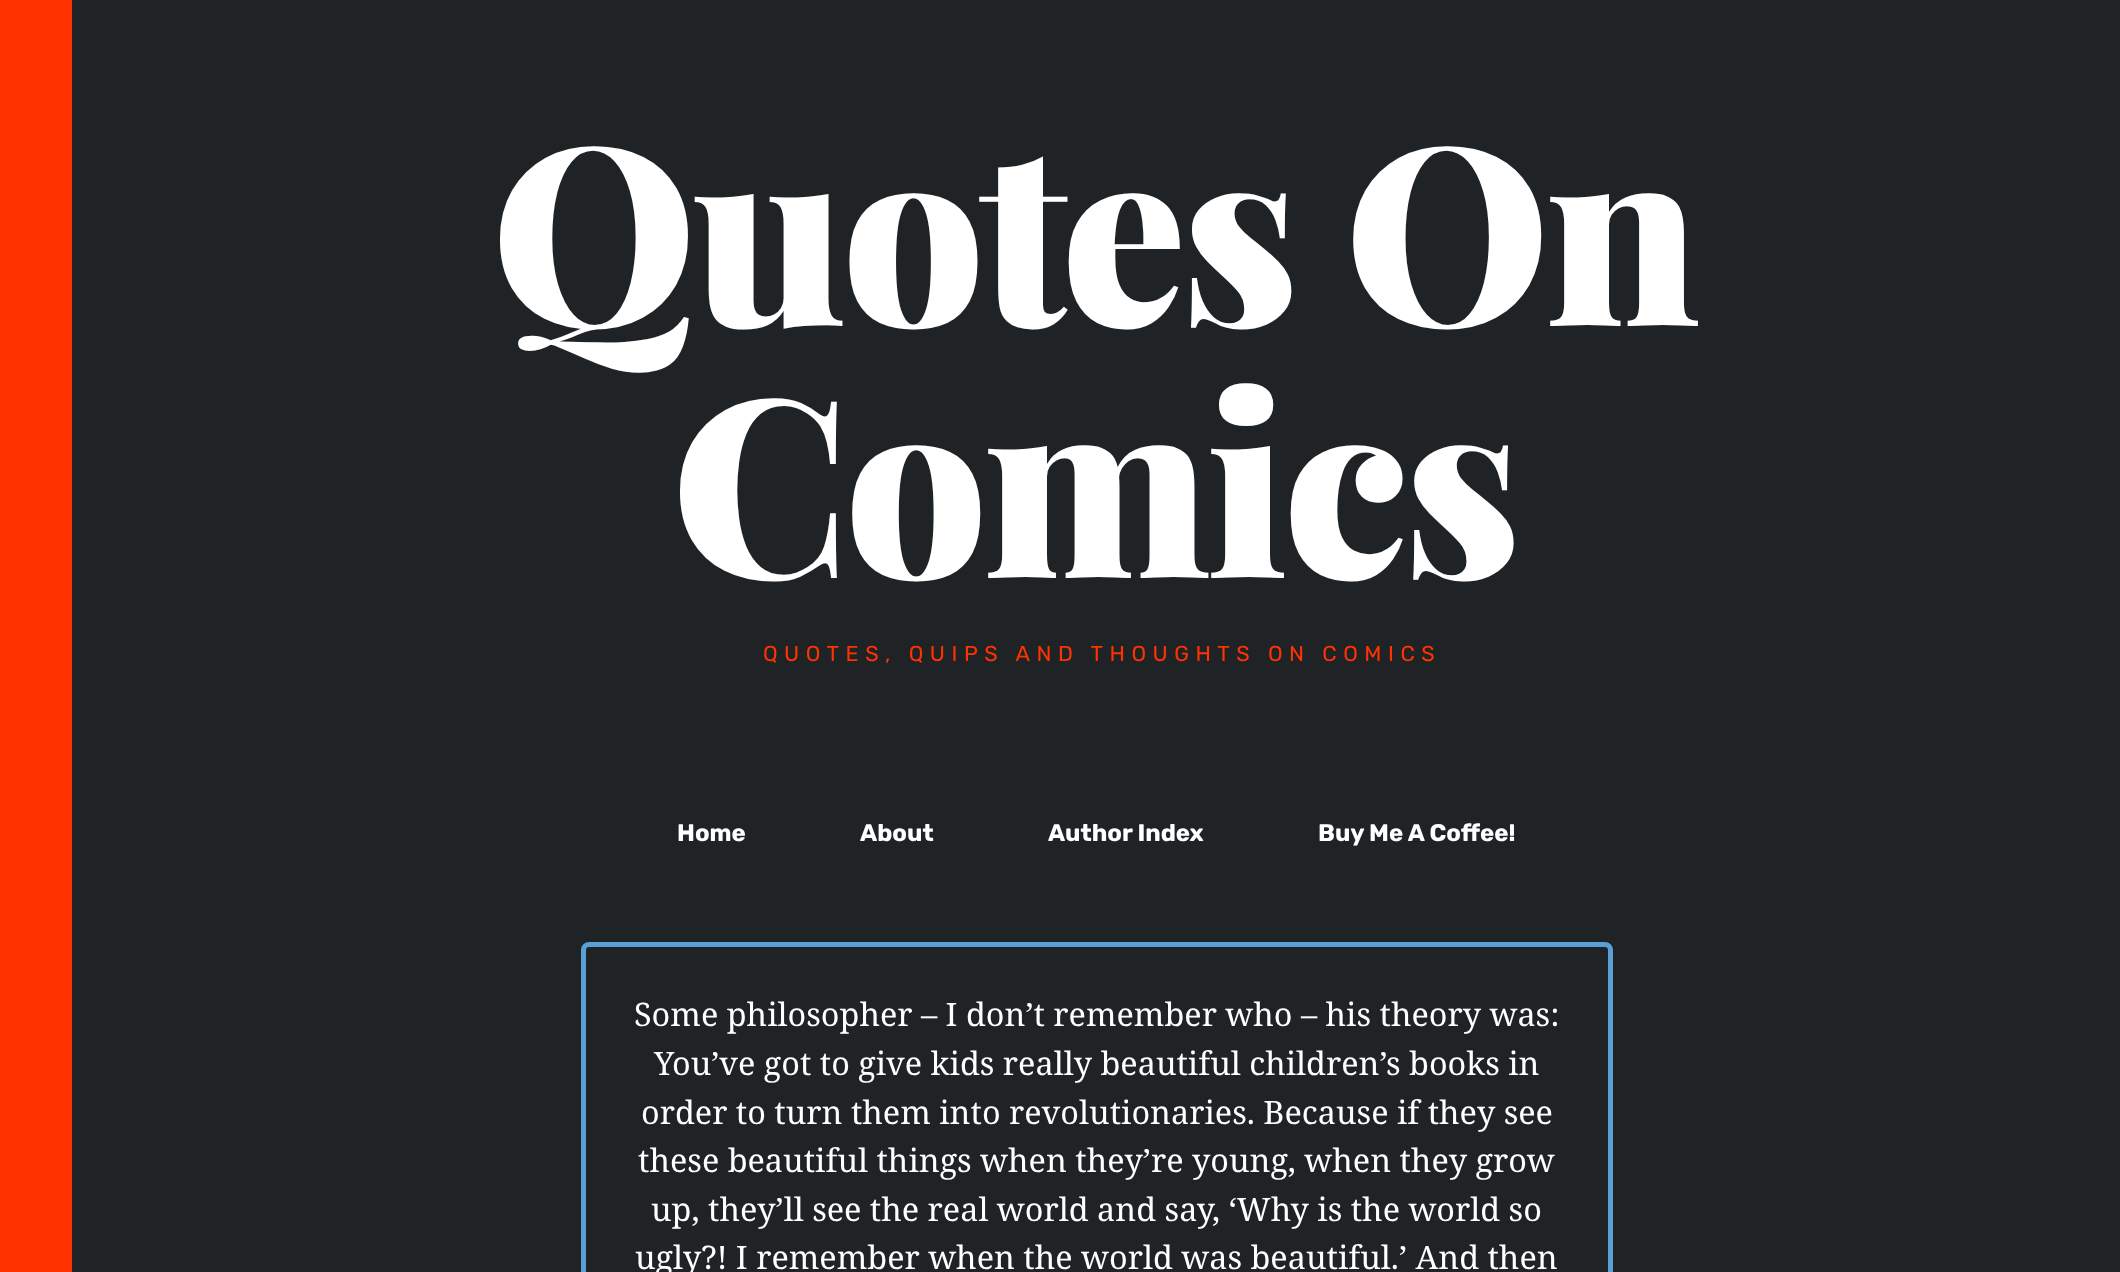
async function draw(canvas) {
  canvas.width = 2120;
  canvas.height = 1272;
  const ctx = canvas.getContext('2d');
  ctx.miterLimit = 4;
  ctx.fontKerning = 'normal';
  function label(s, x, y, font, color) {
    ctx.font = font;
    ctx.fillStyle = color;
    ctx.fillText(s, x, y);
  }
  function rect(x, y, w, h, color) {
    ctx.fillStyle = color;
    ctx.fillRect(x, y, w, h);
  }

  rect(0, 0, 2120, 1272, '#202326');
  rect(0, 0, 72, 1272, '#f30');
  ctx.letterSpacing = '-5px';
  label('Quotes On', 491, 326, '900 249px Playfair Display', '#fff');
  label('Comics', 671, 578, '900 249px Playfair Display', '#fff');
  ctx.letterSpacing = '6.5px';
  label('QUOTES, QUIPS AND THOUGHTS ON COMICS', 763, 661, '21.6px Rubik', '#f30');
  ctx.letterSpacing = '0px';
  label('Home', 677, 841, 'bold 24px Rubik', '#fff');
  label('About', 860, 841, 'bold 24px Rubik', '#fff');
  label('Author Index', 1048, 841, 'bold 24px Rubik', '#fff');
  label('Buy Me A Coffee!', 1318, 841, 'bold 24px Rubik', '#fff');
  ctx.beginPath();
  ctx.roundRect(583.5, 944.5, 1027, 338, 5.5);
  ctx.strokeStyle = '#59a0d6';
  ctx.lineWidth = 5;
  ctx.stroke();
  label('Some philosopher – I don’t remember who – his theory was:', 634, 1026, '32.4px Noto Serif', '#fff');
  label('You’ve got to give kids really beautiful children’s books in', 654, 1075, '32.4px Noto Serif', '#fff');
  label('order to turn them into revolutionaries. Because if they see', 641, 1124, '32.4px Noto Serif', '#fff');
  label('these beautiful things when they’re young, when they grow', 638, 1172, '32.4px Noto Serif', '#fff');
  label('up, they’ll see the real world and say, ‘Why is the world so', 651, 1221, '32.4px Noto Serif', '#fff');
  label('ugly?! I remember when the world was beautiful.’ And then', 635, 1269, '32.4px Noto Serif', '#fff');
}

draw(document.querySelector('canvas'));
